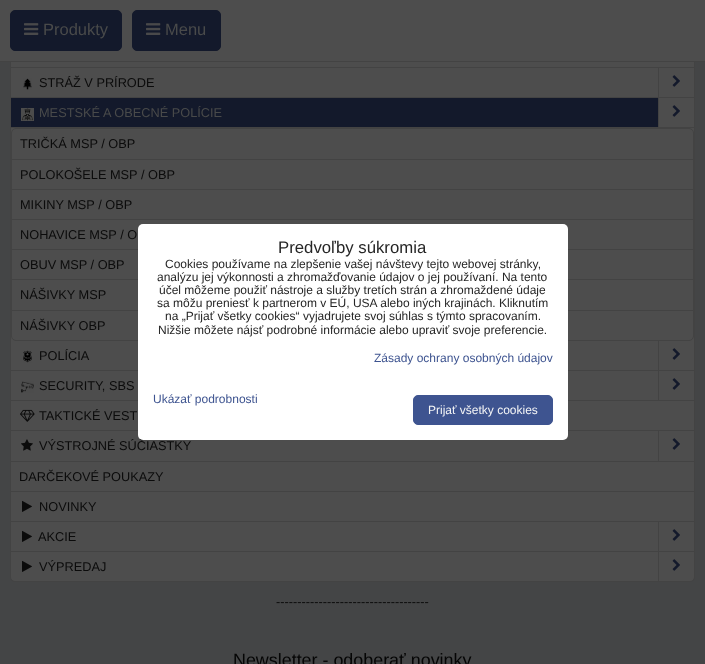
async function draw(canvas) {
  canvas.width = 705;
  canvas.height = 664;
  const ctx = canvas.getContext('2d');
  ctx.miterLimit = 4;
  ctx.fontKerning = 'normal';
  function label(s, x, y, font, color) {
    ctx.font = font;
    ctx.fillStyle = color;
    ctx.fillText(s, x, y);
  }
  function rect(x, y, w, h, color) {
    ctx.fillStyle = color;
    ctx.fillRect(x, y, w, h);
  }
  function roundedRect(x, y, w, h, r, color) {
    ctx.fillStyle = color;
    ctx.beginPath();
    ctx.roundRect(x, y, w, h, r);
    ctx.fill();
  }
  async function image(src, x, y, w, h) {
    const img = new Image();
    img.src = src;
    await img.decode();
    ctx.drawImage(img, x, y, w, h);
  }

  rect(0, 0, 705, 664, '#444546');
  ctx.fillStyle = '#4d4d4d';
  ctx.beginPath();
  ctx.roundRect(10.5, 7.5, 684, 574, 4.5);
  ctx.fill();
  ctx.strokeStyle = '#434343';
  ctx.stroke();
  rect(0, 0, 705, 61, '#4d4d4d');
  rect(0, 61, 705, 1, '#434343');
  ctx.fillStyle = '#13192b';
  ctx.beginPath();
  ctx.roundRect(10.5, 10.5, 111, 40, 4.5);
  ctx.fill();
  ctx.strokeStyle = '#13192b';
  ctx.stroke();
  await image('assets/img1.png', 24, 23, 15, 12);
  label('Produkty', 43, 35, '16.5px Liberation Sans', '#494a4a');
  ctx.fillStyle = '#13192b';
  ctx.beginPath();
  ctx.roundRect(132.5, 10.5, 88, 40, 4.5);
  ctx.fill();
  ctx.stroke();
  await image('assets/img1.png', 146, 23, 15, 12);
  label('Menu', 165, 35, '16.5px Liberation Sans', '#494a4a');
  rect(11, 67, 683, 1, '#434343');
  rect(11, 97, 683, 1, '#434343');
  await image('assets/img2.png', 23, 78, 9, 12);
  label('STRÁŽ V PRÍRODE', 39, 87, '12.75px Liberation Sans', '#0b0b0b');
  rect(658, 68, 1, 29, '#434343');
  await image('assets/img3.png', 672, 75, 8, 12);
  rect(11, 98, 647, 29, '#13192b');
  rect(11, 127, 683, 1, '#434343');
  await image('assets/img4.png', 21, 108, 13, 13);
  label('MESTSKÉ', 39, 117, '12.75px Liberation Sans', '#494a4a');
  label('A OBECNÉ POLÍCIE', 103, 117, '12.75px Liberation Sans', '#494a4a');
  rect(658, 98, 1, 29, '#434343');
  await image('assets/img3.png', 672, 105, 8, 12);
  ctx.beginPath();
  ctx.roundRect(11.5, 128.5, 682, 212, 4.5);
  ctx.strokeStyle = '#434343';
  ctx.stroke();
  rect(12, 159, 681, 1, '#434343');
  label('TRIČKÁ MSP / OBP', 20, 148, '12.75px Liberation Sans', '#0b0b0b');
  rect(12, 189, 681, 1, '#434343');
  label('POLOKOŠELE MSP / OBP', 20, 179, '12.75px Liberation Sans', '#0b0b0b');
  rect(12, 219, 681, 1, '#434343');
  label('MIKINY MSP / OBP', 20, 209, '12.75px Liberation Sans', '#0b0b0b');
  rect(12, 249, 681, 1, '#434343');
  label('NOHAVICE MSP / O', 20, 239, '12.75px Liberation Sans', '#0b0b0b');
  rect(12, 279, 681, 1, '#434343');
  label('OBUV MSP / OBP', 20, 269, '12.75px Liberation Sans', '#0b0b0b');
  rect(12, 310, 681, 1, '#434343');
  label('NÁŠIVKY MSP', 20, 299, '12.75px Liberation Sans', '#0b0b0b');
  label('NÁŠIVKY OBP', 20, 330, '12.75px Liberation Sans', '#0b0b0b');
  rect(11, 370, 683, 1, '#434343');
  await image('assets/img5.png', 23, 350, 9, 13);
  label('POLÍCIA', 39, 360, '12.75px Liberation Sans', '#0b0b0b');
  rect(658, 341, 1, 29, '#434343');
  await image('assets/img3.png', 672, 348, 8, 12);
  rect(11, 400, 683, 1, '#434343');
  await image('assets/img6.png', 21, 381, 13, 12);
  label('SECURITY, SBS', 39, 390, '12.75px Liberation Sans', '#0b0b0b');
  rect(658, 371, 1, 29, '#434343');
  await image('assets/img3.png', 672, 378, 8, 12);
  rect(11, 430, 683, 1, '#434343');
  await image('assets/img7.png', 20, 409, 15, 13);
  label('TAKTICKÉ VEST', 39, 420, '12.75px Liberation Sans', '#0b0b0b');
  rect(11, 461, 683, 1, '#434343');
  await image('assets/img8.png', 21, 439, 12, 12);
  label('VÝSTROJNÉ SÚČIASTKY', 39, 450, '12.75px Liberation Sans', '#0b0b0b');
  rect(658, 431, 1, 30, '#434343');
  await image('assets/img3.png', 672, 438, 8, 12);
  rect(11, 491, 683, 1, '#434343');
  label('DARČEKOVÉ POUKAZY', 19, 481, '12.75px Liberation Sans', '#0b0b0b');
  rect(11, 521, 683, 1, '#434343');
  await image('assets/img9.png', 22, 500, 10, 12);
  label('NOVINKY', 39, 511, '12.75px Liberation Sans', '#0b0b0b');
  rect(11, 551, 683, 1, '#434343');
  await image('assets/img9.png', 22, 530, 10, 12);
  label('AKCIE', 38, 541, '12.75px Liberation Sans', '#0b0b0b');
  rect(658, 522, 1, 29, '#434343');
  await image('assets/img3.png', 672, 529, 8, 12);
  await image('assets/img9.png', 22, 560, 10, 12);
  label('VÝPREDAJ', 39, 571, '12.75px Liberation Sans', '#0b0b0b');
  rect(658, 552, 1, 29, '#434343');
  await image('assets/img3.png', 672, 559, 8, 12);
  label('------------------------------------', 276, 606, '12.75px Liberation Sans', '#0b0b0b');
  label('Newsletter - odoberať novinky', 233, 666, '17.9px Liberation Sans', '#050505');
  roundedRect(138, 224, 430, 216, 5, '#fff');
  label('Predvoľby súkromia', 278, 253, '16.75px Liberation Sans', '#262626');
  label('Cookies používame na zlepšenie vašej návštevy tejto webovej stránky,', 165, 268, '12px Liberation Sans', '#262626');
  label('analýzu jej výkonnosti a zhromažďovanie údajov o jej používaní. Na tento', 157, 281, '12px Liberation Sans', '#262626');
  label('účel môžeme použiť nástroje a služby tretích strán a zhromaždené údaje', 159, 294, '12px Liberation Sans', '#262626');
  label('sa môžu preniesť k partnerom v EÚ, USA alebo iných krajinách. Kliknutím', 157, 307, '12px Liberation Sans', '#262626');
  label('na „Prijať všetky cookies“ vyjadrujete svoj súhlas s týmto spracovaním.', 165, 320, '12px Liberation Sans', '#262626');
  label('Nižšie môžete nájsť podrobné informácie alebo upraviť svoje preferencie.', 158, 334, '12px Liberation Sans', '#262626');
  label('Zásady ochrany osobných údajov', 374, 362, '12px Liberation Sans', '#3e5490');
  label('Ukázať podrobnosti', 153, 403, '12px Liberation Sans', '#3e5490');
  ctx.beginPath();
  ctx.roundRect(413.5, 395.5, 139, 29, 4.5);
  ctx.fill();
  ctx.strokeStyle = '#3e5490';
  ctx.stroke();
  label('Prijať všetky cookies', 428, 414, '12px Liberation Sans', '#f4f5f6');
}

draw(document.querySelector('canvas'));
